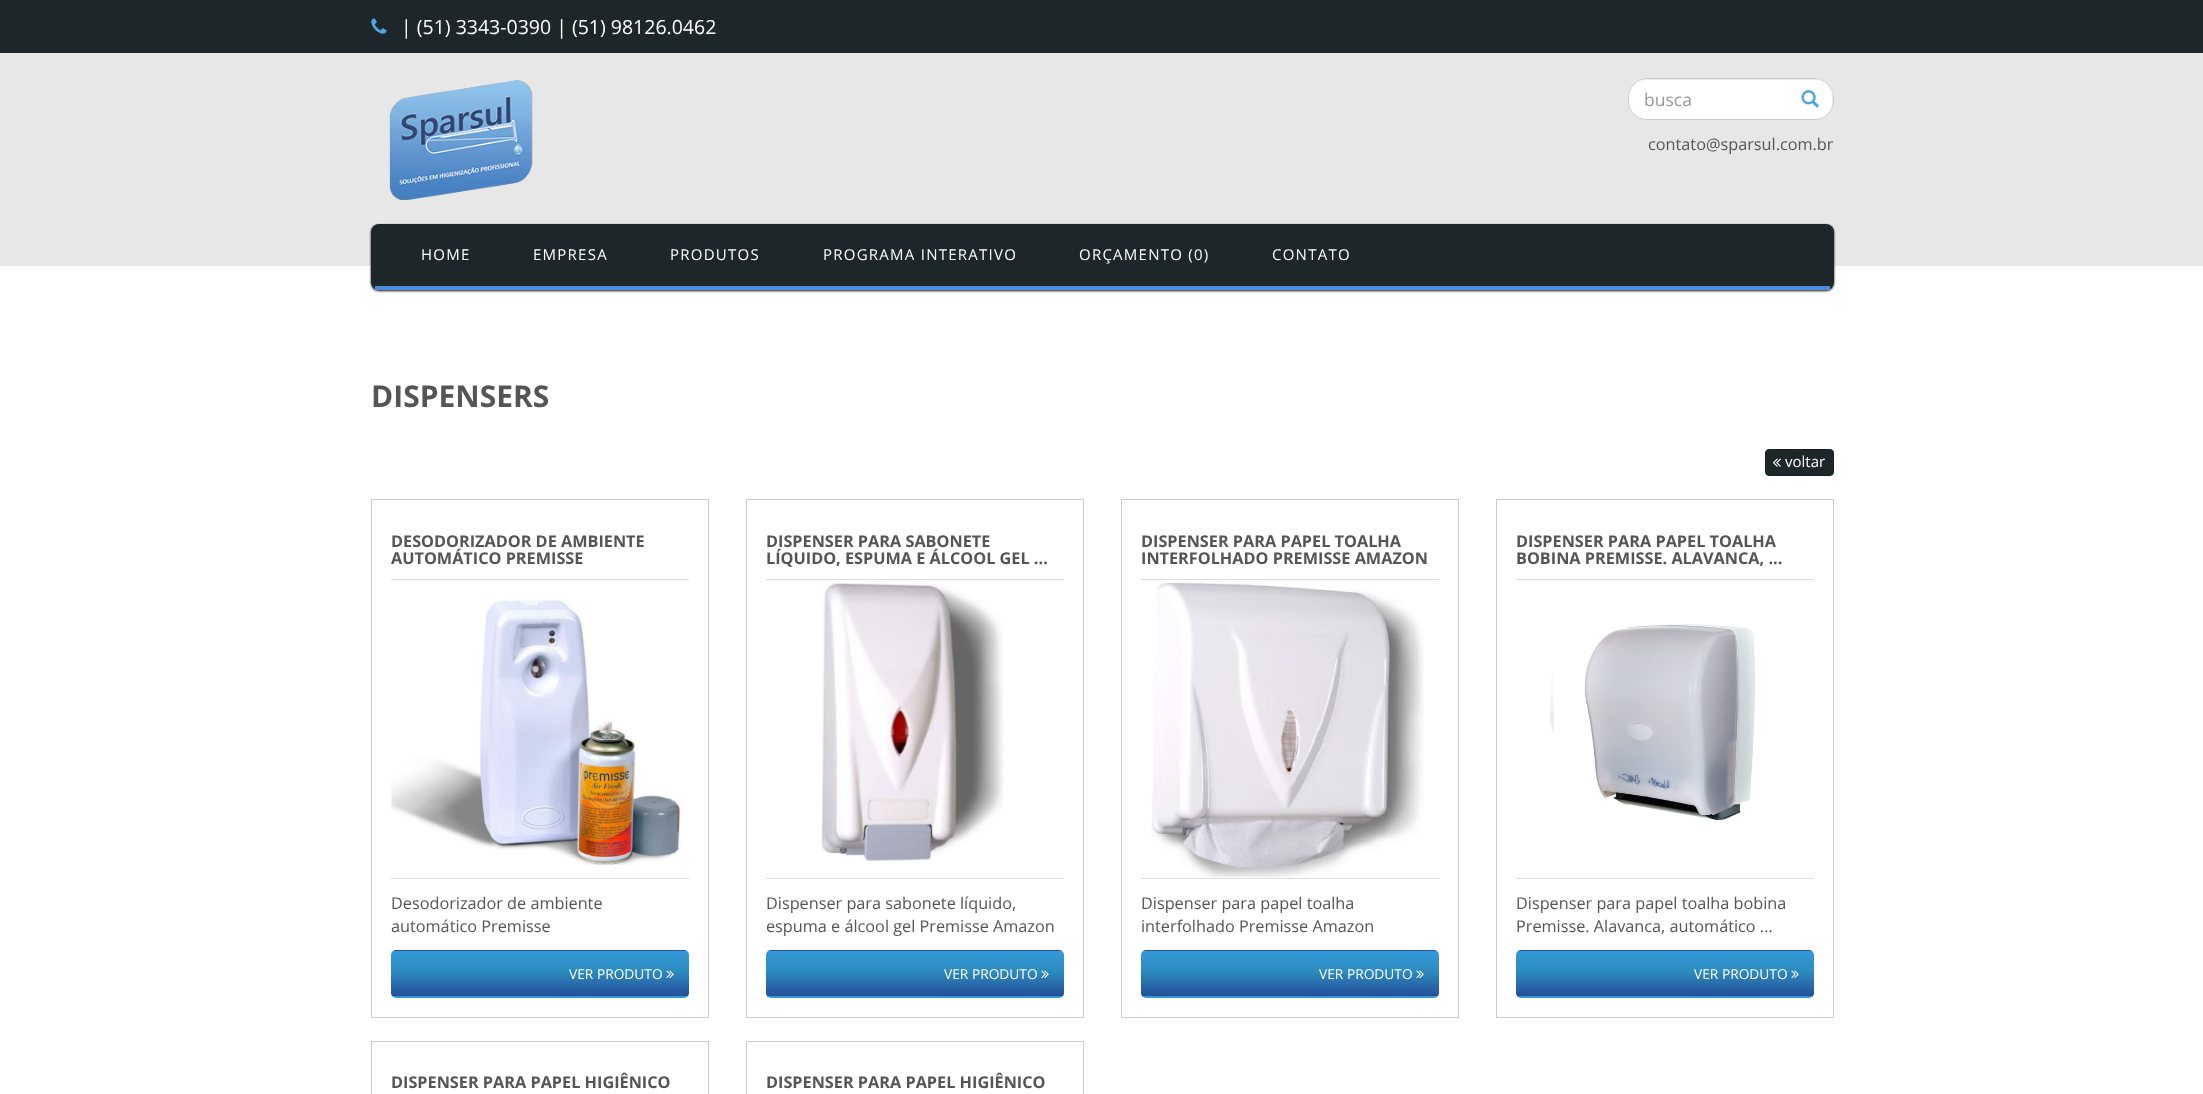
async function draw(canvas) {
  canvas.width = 2203;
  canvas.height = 1094;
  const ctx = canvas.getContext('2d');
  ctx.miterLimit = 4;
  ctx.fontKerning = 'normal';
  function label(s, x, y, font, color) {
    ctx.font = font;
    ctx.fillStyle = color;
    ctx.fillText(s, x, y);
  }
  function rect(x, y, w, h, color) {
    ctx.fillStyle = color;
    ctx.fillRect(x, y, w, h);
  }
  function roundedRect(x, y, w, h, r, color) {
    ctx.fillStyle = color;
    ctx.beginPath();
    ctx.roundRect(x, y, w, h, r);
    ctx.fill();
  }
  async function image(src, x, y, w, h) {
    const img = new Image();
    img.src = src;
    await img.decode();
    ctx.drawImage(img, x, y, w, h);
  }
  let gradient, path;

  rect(0, 0, 2203, 1094, '#fff');
  rect(0, 0, 2203, 53, '#1d272a');
  await image('assets/img1.png', 371, 18, 16, 16);
  label('| (51) 3343-0390 | (51) 98126.0462', 401, 34, '19.5px Open Sans', '#fff');
  rect(0, 53, 2203, 213, '#e7e7e7');
  await image('assets/img2.png', 389, 80, 144, 120);
  roundedRect(1628, 78, 206, 42, 19, '#fff');
  ctx.fillStyle = '#ececec';
  path = new Path2D('M1646 80H1815C1825 80 1832 88 1832 98V102C1832 106 1831 109 1830 112C1833 107 1833 102 1833 97C1831 73 1803 79 1787 79H1675C1659 79 1629 73 1629 98C1629 88 1637 80 1646 80Z');
  ctx.fill(path);
  ctx.beginPath();
  ctx.roundRect(1628.5, 78.5, 205, 41, 18.5);
  ctx.strokeStyle = '#ccc';
  ctx.stroke();
  label('busca', 1644, 106, '17.5px Open Sans', '#999');
  await image('assets/img3.png', 1801, 90, 18, 18);
  label('contato@sparsul.com.br', 1648, 150, '16.25px Open Sans', '#555');
  ctx.fillStyle = '#111';
  ctx.filter = 'blur(1px)';
  ctx.beginPath();
  ctx.roundRect(371, 225, 1463, 66, 8);
  ctx.fill();
  ctx.filter = 'none';
  roundedRect(371, 224, 1463, 66, 8, '#1d272a');
  rect(375, 286, 1455, 4, '#4b8dda');
  ctx.letterSpacing = '1.25px';
  label('HOME', 421, 260, '15px Open Sans', '#fff');
  label('EMPRESA', 533, 260, '15px Open Sans', '#fff');
  label('PRODUTOS', 670, 260, '15px Open Sans', '#fff');
  label('PROGRAMA INTERATIVO', 823, 260, '15px Open Sans', '#fff');
  label('ORÇAMENTO (0)', 1079, 260, '15px Open Sans', '#fff');
  label('CONTATO', 1272, 260, '15px Open Sans', '#fff');
  ctx.letterSpacing = '0px';
  label('DISPENSERS', 371, 407, 'bold 30px Open Sans', '#555');
  ctx.fillStyle = '#1d272a';
  ctx.beginPath();
  ctx.roundRect(1765.5, 449.5, 68, 26, 3.5);
  ctx.fill();
  ctx.strokeStyle = '#161f21';
  ctx.stroke();
  await image('assets/img4.png', 1772, 458, 9, 9);
  label('voltar', 1785, 467, '15px Open Sans', '#fff');
  ctx.strokeStyle = '#ccc';
  ctx.strokeRect(371.5, 499.5, 337, 518);
  label('DESODORIZADOR DE AMBIENTE', 391, 547, 'bold 16.25px Open Sans', '#555');
  label('AUTOMÁTICO PREMISSE', 391, 564, 'bold 16.25px Open Sans', '#555');
  rect(391, 579, 298, 1, '#ddd');
  rect(391, 878, 298, 1, '#ddd');
  await image('assets/img5.png', 391, 596, 292, 269);
  label('Desodorizador de ambiente', 391, 909, '16.25px Open Sans', '#555');
  label('automático Premisse', 391, 932, '16.25px Open Sans', '#555');
  ctx.save();
  ctx.beginPath();
  ctx.roundRect(391, 950, 298, 48, 5);
  ctx.clip();
  gradient = ctx.createLinearGradient(540, 906, 540, 951);
  gradient.addColorStop(0, '#3499da');
  gradient.addColorStop(0.44, '#2d8cbf');
  gradient.addColorStop(1, '#244f99');
  ctx.fillStyle = gradient;
  ctx.fillRect(391, 950, 298, 1);
  gradient = ctx.createLinearGradient(540, 951, 540, 996);
  gradient.addColorStop(0, '#3499da');
  gradient.addColorStop(0.44, '#2d8cbf');
  gradient.addColorStop(1, '#244f99');
  ctx.fillStyle = gradient;
  ctx.fillRect(391, 951, 298, 45);
  gradient = ctx.createLinearGradient(540, 996, 540, 1041);
  gradient.addColorStop(0, '#3499da');
  gradient.addColorStop(0.44, '#2d8cbf');
  gradient.addColorStop(1, '#244f99');
  ctx.fillStyle = gradient;
  ctx.fillRect(391, 996, 298, 2);
  ctx.restore();
  label('VER PRODUTO', 569, 979, '13.75px Open Sans', '#fff');
  await image('assets/img6.png', 666, 970, 8, 9);
  ctx.strokeRect(746.5, 499.5, 337, 518);
  label('DISPENSER PARA SABONETE', 766, 547, 'bold 16.25px Open Sans', '#555');
  label('LÍQUIDO, ESPUMA E ÁLCOOL GEL ...', 766, 564, 'bold 16.25px Open Sans', '#555');
  rect(766, 579, 298, 1, '#ddd');
  rect(766, 878, 298, 1, '#ddd');
  await image('assets/img7.png', 821, 583, 183, 279);
  label('Dispenser para sabonete líquido,', 766, 909, '16.25px Open Sans', '#555');
  label('espuma e álcool gel Premisse Amazon', 766, 932, '16.25px Open Sans', '#555');
  ctx.save();
  ctx.beginPath();
  ctx.roundRect(766, 950, 298, 48, 5);
  ctx.clip();
  gradient = ctx.createLinearGradient(915, 906, 915, 951);
  gradient.addColorStop(0, '#3499da');
  gradient.addColorStop(0.44, '#2d8cbf');
  gradient.addColorStop(1, '#244f99');
  ctx.fillStyle = gradient;
  ctx.fillRect(766, 950, 298, 1);
  gradient = ctx.createLinearGradient(915, 951, 915, 996);
  gradient.addColorStop(0, '#3499da');
  gradient.addColorStop(0.44, '#2d8cbf');
  gradient.addColorStop(1, '#244f99');
  ctx.fillStyle = gradient;
  ctx.fillRect(766, 951, 298, 45);
  gradient = ctx.createLinearGradient(915, 996, 915, 1041);
  gradient.addColorStop(0, '#3499da');
  gradient.addColorStop(0.44, '#2d8cbf');
  gradient.addColorStop(1, '#244f99');
  ctx.fillStyle = gradient;
  ctx.fillRect(766, 996, 298, 2);
  ctx.restore();
  label('VER PRODUTO', 944, 979, '13.75px Open Sans', '#fff');
  await image('assets/img6.png', 1041, 970, 8, 9);
  ctx.strokeRect(1121.5, 499.5, 337, 518);
  label('DISPENSER PARA PAPEL TOALHA', 1141, 547, 'bold 16.25px Open Sans', '#555');
  label('INTERFOLHADO PREMISSE AMAZON', 1141, 564, 'bold 16.25px Open Sans', '#555');
  rect(1141, 579, 298, 1, '#ddd');
  rect(1141, 878, 298, 1, '#ddd');
  await image('assets/img8.png', 1151, 582, 273, 296);
  label('Dispenser para papel toalha', 1141, 909, '16.25px Open Sans', '#555');
  label('interfolhado Premisse Amazon', 1141, 932, '16.25px Open Sans', '#555');
  ctx.save();
  ctx.beginPath();
  ctx.roundRect(1141, 950, 298, 48, 5);
  ctx.clip();
  gradient = ctx.createLinearGradient(1290, 906, 1290, 951);
  gradient.addColorStop(0, '#3499da');
  gradient.addColorStop(0.44, '#2d8cbf');
  gradient.addColorStop(1, '#244f99');
  ctx.fillStyle = gradient;
  ctx.fillRect(1141, 950, 298, 1);
  gradient = ctx.createLinearGradient(1290, 951, 1290, 996);
  gradient.addColorStop(0, '#3499da');
  gradient.addColorStop(0.44, '#2d8cbf');
  gradient.addColorStop(1, '#244f99');
  ctx.fillStyle = gradient;
  ctx.fillRect(1141, 951, 298, 45);
  gradient = ctx.createLinearGradient(1290, 996, 1290, 1041);
  gradient.addColorStop(0, '#3499da');
  gradient.addColorStop(0.44, '#2d8cbf');
  gradient.addColorStop(1, '#244f99');
  ctx.fillStyle = gradient;
  ctx.fillRect(1141, 996, 298, 2);
  ctx.restore();
  label('VER PRODUTO', 1319, 979, '13.75px Open Sans', '#fff');
  await image('assets/img6.png', 1416, 970, 8, 9);
  ctx.strokeRect(1496.5, 499.5, 337, 518);
  label('DISPENSER PARA PAPEL TOALHA', 1516, 547, 'bold 16.25px Open Sans', '#555');
  label('BOBINA PREMISSE. ALAVANCA, ...', 1516, 564, 'bold 16.25px Open Sans', '#555');
  rect(1516, 579, 298, 1, '#ddd');
  rect(1516, 878, 298, 1, '#ddd');
  await image('assets/img9.png', 1550, 624, 205, 196);
  label('Dispenser para papel toalha bobina', 1516, 909, '16.25px Open Sans', '#555');
  label('Premisse. Alavanca, automático ...', 1516, 932, '16.25px Open Sans', '#555');
  ctx.save();
  ctx.beginPath();
  ctx.roundRect(1516, 950, 298, 48, 5);
  ctx.clip();
  gradient = ctx.createLinearGradient(1665, 906, 1665, 951);
  gradient.addColorStop(0, '#3499da');
  gradient.addColorStop(0.44, '#2d8cbf');
  gradient.addColorStop(1, '#244f99');
  ctx.fillStyle = gradient;
  ctx.fillRect(1516, 950, 298, 1);
  gradient = ctx.createLinearGradient(1665, 951, 1665, 996);
  gradient.addColorStop(0, '#3499da');
  gradient.addColorStop(0.44, '#2d8cbf');
  gradient.addColorStop(1, '#244f99');
  ctx.fillStyle = gradient;
  ctx.fillRect(1516, 951, 298, 45);
  gradient = ctx.createLinearGradient(1665, 996, 1665, 1041);
  gradient.addColorStop(0, '#3499da');
  gradient.addColorStop(0.44, '#2d8cbf');
  gradient.addColorStop(1, '#244f99');
  ctx.fillStyle = gradient;
  ctx.fillRect(1516, 996, 298, 2);
  ctx.restore();
  label('VER PRODUTO', 1694, 979, '13.75px Open Sans', '#fff');
  await image('assets/img6.png', 1791, 970, 8, 9);
  ctx.strokeRect(371.5, 1041.5, 337, 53);
  label('DISPENSER PARA PAPEL HIGIÊNICO', 391, 1088, 'bold 16.25px Open Sans', '#555');
  ctx.strokeRect(746.5, 1041.5, 337, 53);
  label('DISPENSER PARA PAPEL HIGIÊNICO', 766, 1088, 'bold 16.25px Open Sans', '#555');
}

draw(document.querySelector('canvas'));
